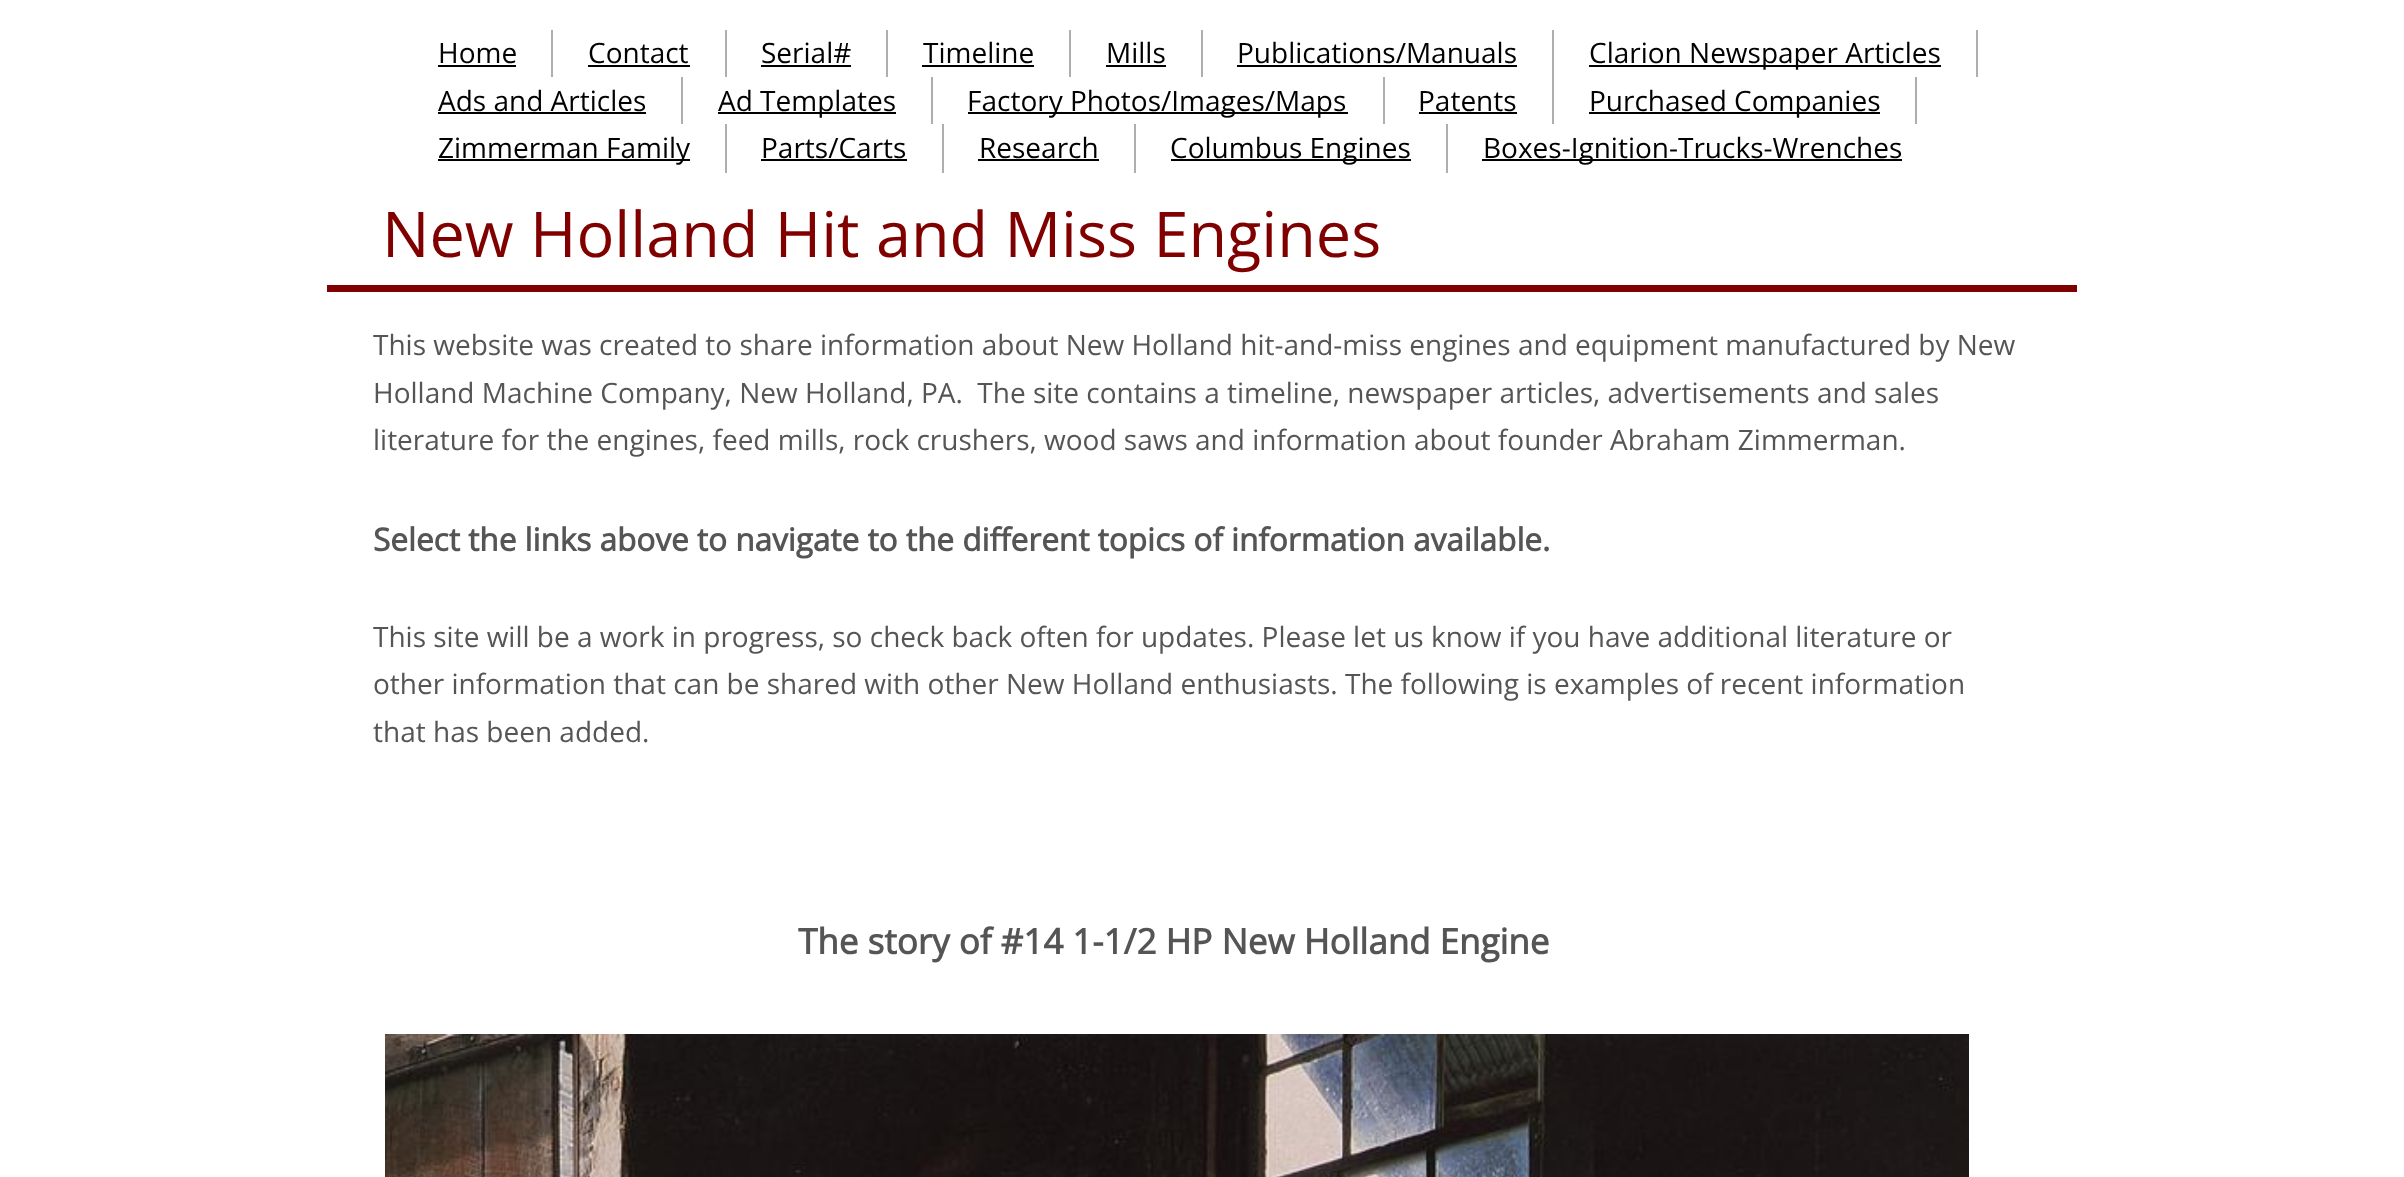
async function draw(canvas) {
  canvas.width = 2404;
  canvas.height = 1177;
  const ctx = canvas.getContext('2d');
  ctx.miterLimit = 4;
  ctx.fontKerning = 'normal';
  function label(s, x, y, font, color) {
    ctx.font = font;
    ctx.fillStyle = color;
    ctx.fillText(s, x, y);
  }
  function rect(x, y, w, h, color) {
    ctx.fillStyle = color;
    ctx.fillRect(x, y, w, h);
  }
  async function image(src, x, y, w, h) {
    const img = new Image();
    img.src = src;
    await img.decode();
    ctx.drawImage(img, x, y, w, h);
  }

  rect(0, 0, 2404, 1177, '#fff');
  rect(551, 30, 2, 47, '#aeaeae');
  label('Home', 438, 63, '28px Open Sans', '#000');
  rect(438, 65, 78, 2, '#000');
  rect(725, 30, 2, 47, '#aeaeae');
  label('Contact', 588, 63, '28px Open Sans', '#000');
  rect(588, 65, 102, 2, '#000');
  rect(886, 30, 2, 47, '#aeaeae');
  label('Serial#', 761, 63, '28px Open Sans', '#000');
  rect(761, 65, 90, 2, '#000');
  rect(1069, 30, 2, 47, '#aeaeae');
  label('Timeline', 923, 63, '28px Open Sans', '#000');
  rect(922, 65, 112, 2, '#000');
  rect(1201, 30, 2, 47, '#aeaeae');
  label('Mills', 1106, 63, '28px Open Sans', '#000');
  rect(1106, 65, 60, 2, '#000');
  rect(1552, 30, 2, 94, '#aeaeae');
  label('Publications/Manuals', 1237, 63, '28px Open Sans', '#000');
  rect(1237, 65, 280, 2, '#000');
  rect(1976, 30, 2, 47, '#aeaeae');
  rect(1589, 65, 352, 2, '#000');
  label('Clarion Newspaper Articles', 1589, 63, '28px Open Sans', '#000');
  rect(681, 77, 2, 47, '#aeaeae');
  label('Ads and Articles', 438, 111, '28px Open Sans', '#000');
  rect(438, 112, 208, 2, '#000');
  rect(931, 77, 2, 47, '#aeaeae');
  rect(718, 112, 178, 2, '#000');
  label('Ad Templates', 718, 111, '28px Open Sans', '#000');
  rect(1383, 77, 2, 47, '#aeaeae');
  rect(968, 112, 380, 2, '#000');
  label('Factory Photos/Images/Maps', 967, 111, '28px Open Sans', '#000');
  label('Patents', 1418, 111, '28px Open Sans', '#000');
  rect(1419, 112, 98, 2, '#000');
  rect(1915, 77, 2, 47, '#aeaeae');
  rect(1589, 112, 291, 2, '#000');
  label('Purchased Companies', 1589, 111, '28px Open Sans', '#000');
  rect(725, 124, 2, 49, '#aeaeae');
  rect(438, 159, 252, 2, '#000');
  label('Zimmerman Family', 438, 158, '28px Open Sans', '#000');
  rect(942, 124, 2, 49, '#aeaeae');
  label('Parts/Carts', 761, 158, '28px Open Sans', '#000');
  rect(761, 159, 146, 2, '#000');
  rect(1134, 124, 2, 49, '#aeaeae');
  label('Research', 979, 158, '28px Open Sans', '#000');
  rect(978, 159, 121, 2, '#000');
  rect(1446, 124, 2, 49, '#aeaeae');
  rect(1171, 159, 240, 2, '#000');
  label('Columbus Engines', 1170, 158, '28px Open Sans', '#000');
  rect(1482, 159, 420, 2, '#000');
  label('Boxes-Ignition-Trucks-Wrenches', 1483, 158, '28px Open Sans', '#000');
  label('New Holland Hit and Miss Engines', 382, 257, '63px Open Sans', '#800000');
  rect(327, 285, 1750, 7, '#7f0000');
  label('This website was created to share information about New Holland hit-and-miss engines and equipment manufactured by New', 373, 355, '28px Open Sans', '#555');
  label('.', 1465, 399, '28px Open Sans', '#555');
  label('Holland Machine Company, New Holland, PA.  The site contains a timeline, newspaper articles, advertisements and sales', 373, 403, '28px Open Sans', '#555');
  label('literature for the engines, feed mills, rock crushers, wood saws and information about founder Abraham Zimmerman.', 373, 450, '28px Open Sans', '#555');
  label('Select the links above to navigate to the different topics of information available.', 373, 551, 'bold 31.5px Open Sans', '#555');
  label('This site will be a work in progress, so check back often for updates. Please let us know if you have additional literature or', 373, 647, '28px Open Sans', '#555');
  label('other information that can be shared with other New Holland enthusiasts. The following is examples of recent information', 373, 694, '28px Open Sans', '#555');
  label('that has been added.', 373, 742, '28px Open Sans', '#555');
  label('The story of #14 1-1/2 HP New Holland Engine', 798, 954, 'bold 35px Open Sans', '#555');
  await image('assets/img1.png', 385, 1034, 1584, 143);
}

draw(document.querySelector('canvas'));
